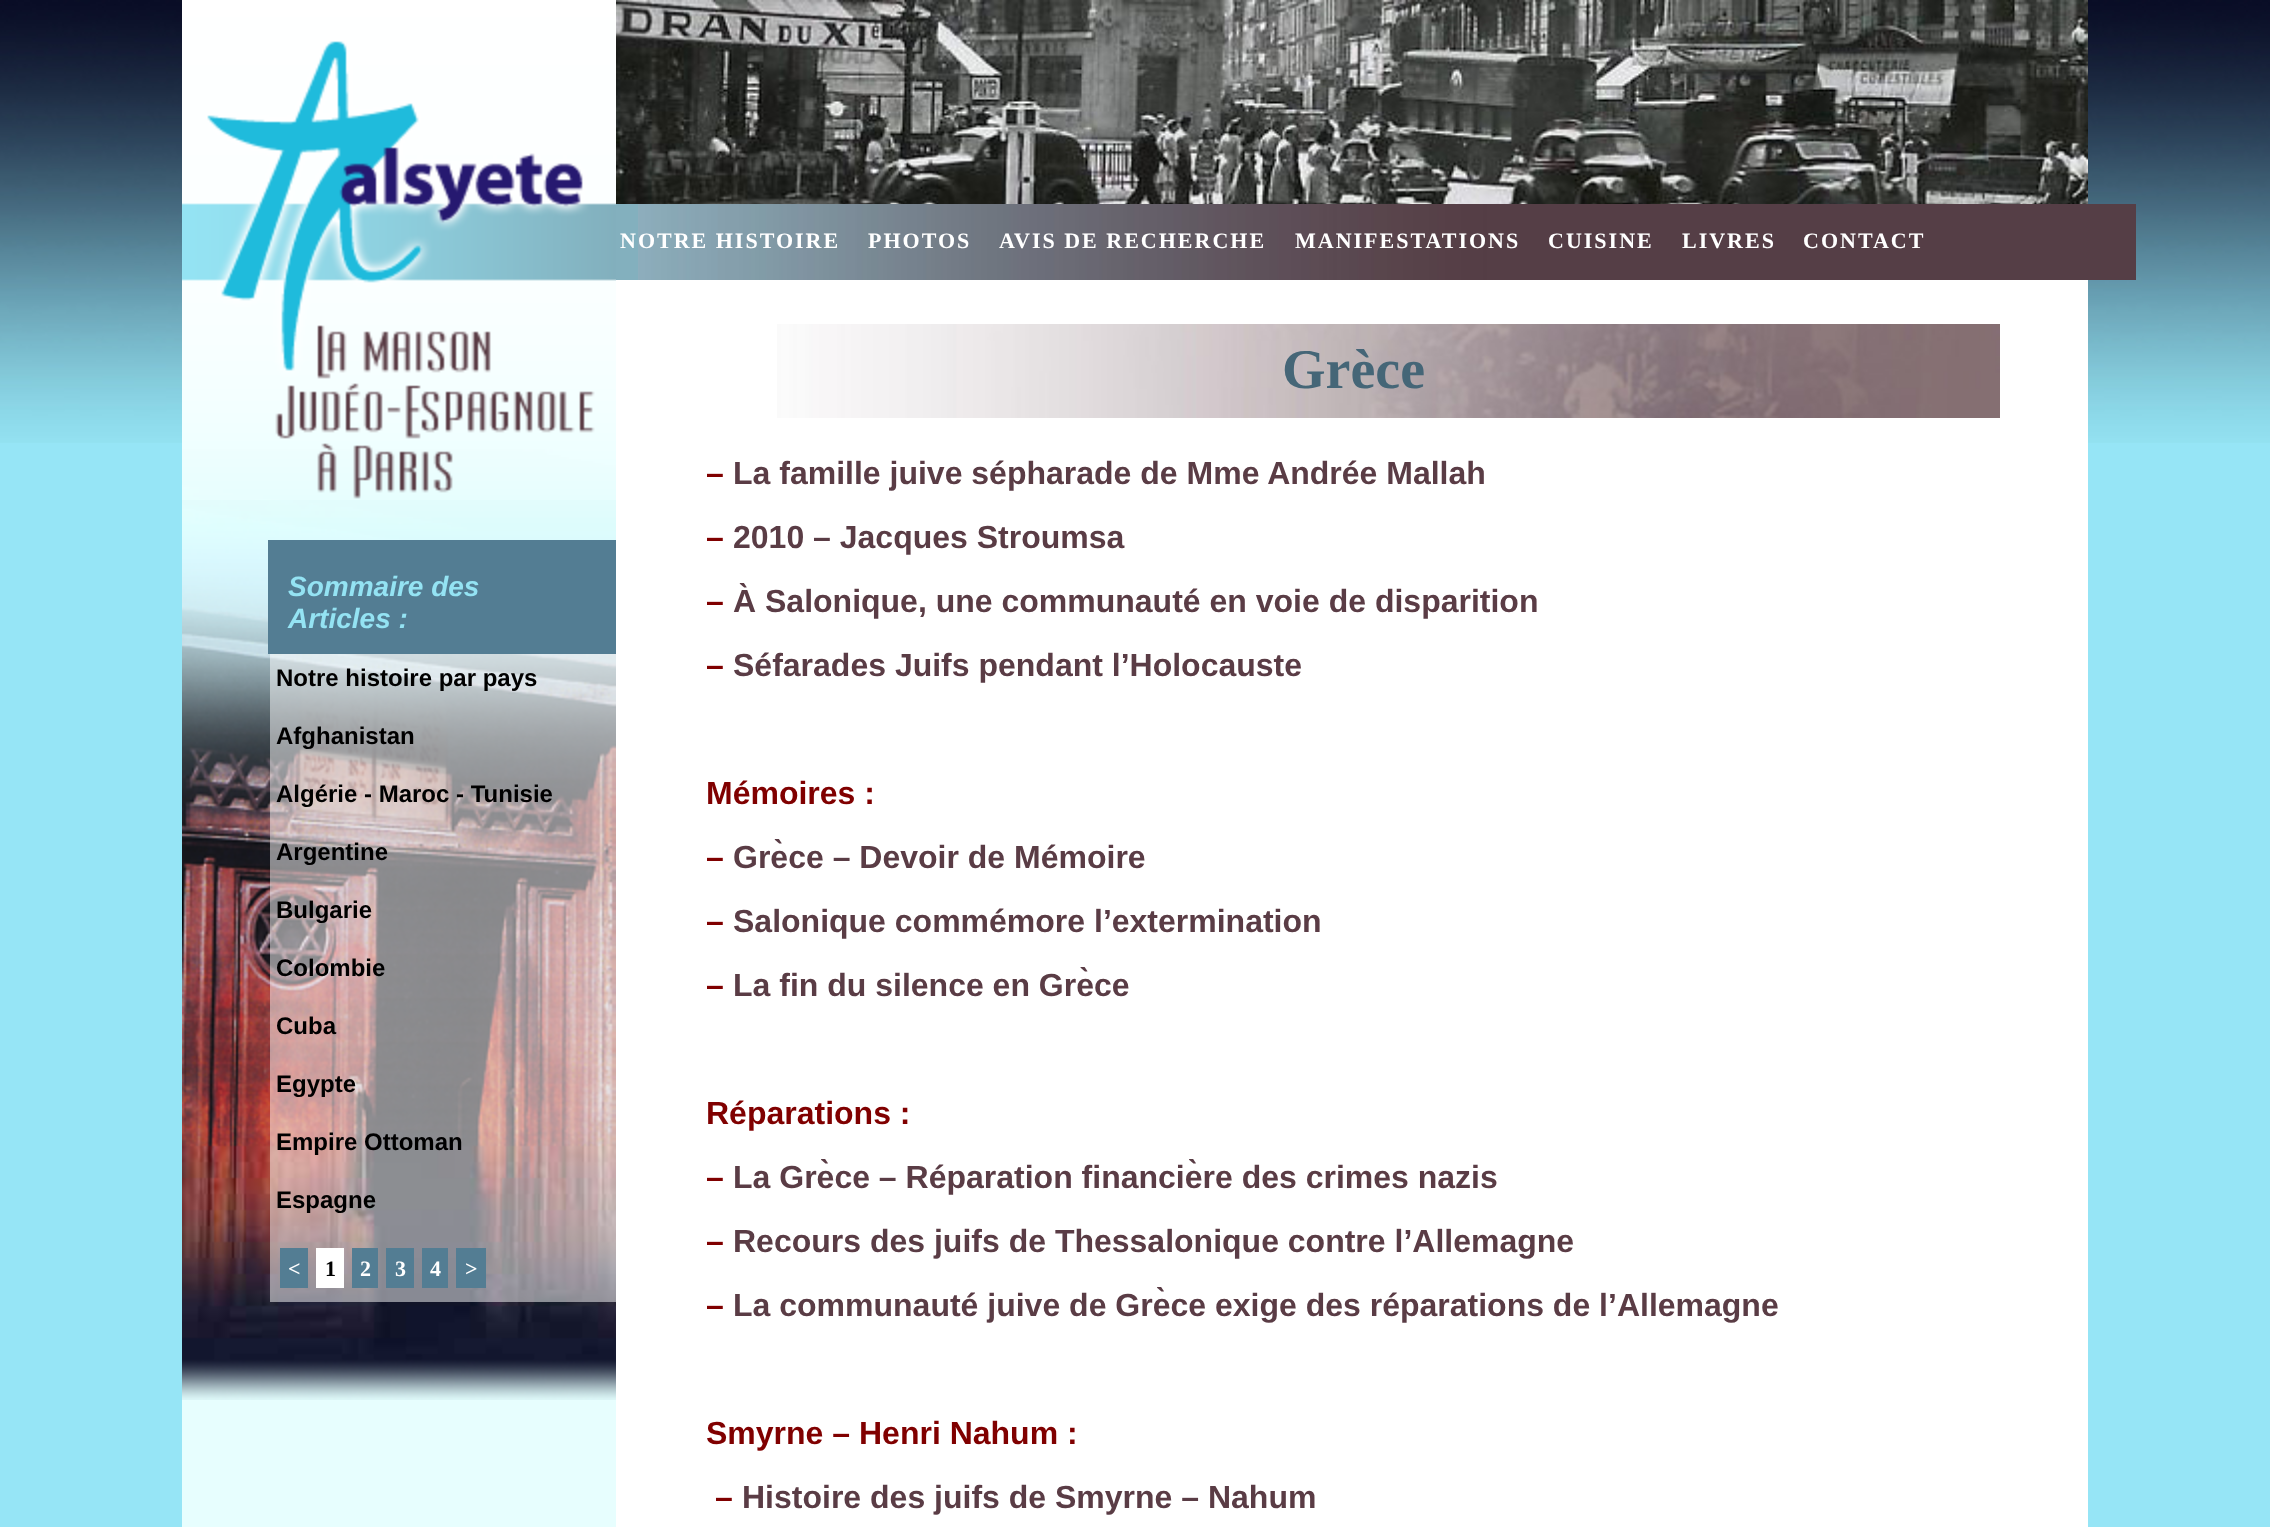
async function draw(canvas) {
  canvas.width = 2270;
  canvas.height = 1527;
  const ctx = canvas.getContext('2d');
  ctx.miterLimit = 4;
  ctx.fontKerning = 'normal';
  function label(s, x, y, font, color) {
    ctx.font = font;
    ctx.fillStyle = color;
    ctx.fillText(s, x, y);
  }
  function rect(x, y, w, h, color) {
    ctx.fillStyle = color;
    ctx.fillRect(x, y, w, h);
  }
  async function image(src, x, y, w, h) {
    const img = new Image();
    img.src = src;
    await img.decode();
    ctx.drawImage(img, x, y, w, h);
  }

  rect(0, 0, 2270, 1527, '#96e5f6');
  await image('assets/img1.png', 0, 0, 2270, 443);
  rect(182, 1400, 434, 127, '#e7fefe');
  await image('assets/img2.png', 182, 0, 434, 500);
  await image('assets/img3.png', 182, 500, 434, 900);
  rect(268, 540, 348, 114, '#537d93');
  label('Sommaire des', 288, 596, 'italic bold 28px Liberation Sans', '#94e3f3');
  label('Articles :', 288, 628, 'italic bold 28px Liberation Sans', '#94e3f3');
  rect(270, 654, 346, 648, '#ffffff80');
  label('Notre histoire par pays', 276, 686, 'bold 24px Liberation Sans', '#000');
  label('Afghanistan', 276, 744, 'bold 24px Liberation Sans', '#000');
  label('Algérie - Maroc - Tunisie', 276, 802, 'bold 24px Liberation Sans', '#000');
  label('Argentine', 276, 860, 'bold 24px Liberation Sans', '#000');
  label('Bulgarie', 276, 918, 'bold 24px Liberation Sans', '#000');
  label('Colombie', 276, 976, 'bold 24px Liberation Sans', '#000');
  label('Cuba', 276, 1034, 'bold 24px Liberation Sans', '#000');
  label('Egypte', 276, 1092, 'bold 24px Liberation Sans', '#000');
  label('Empire Ottoman', 276, 1150, 'bold 24px Liberation Sans', '#000');
  label('Espagne', 276, 1208, 'bold 24px Liberation Sans', '#000');
  rect(280, 1248, 28, 40, '#537d93');
  label('<', 288, 1276, 'bold 22px Liberation Serif', '#fff');
  rect(316, 1248, 28, 40, '#fff');
  label('1', 325, 1276, 'bold 22px Liberation Serif', '#000');
  rect(352, 1248, 26, 40, '#537d93');
  label('2', 360, 1276, 'bold 22px Liberation Serif', '#fff');
  rect(386, 1248, 28, 40, '#537d93');
  label('3', 395, 1276, 'bold 22px Liberation Serif', '#fff');
  rect(422, 1248, 26, 40, '#537d93');
  label('4', 430, 1276, 'bold 22px Liberation Serif', '#fff');
  rect(456, 1248, 30, 40, '#537d93');
  label('>', 465, 1276, 'bold 22px Liberation Serif', '#fff');
  await image('assets/img4.png', 616, 0, 1472, 204);
  rect(616, 204, 22, 76, '#83b0be');
  await image('assets/img5.png', 638, 204, 1498, 76);
  ctx.letterSpacing = '2px';
  label('NOTRE HISTOIRE', 620, 248, 'bold 22px Liberation Serif', '#fff');
  label('PHOTOS', 868, 248, 'bold 22px Liberation Serif', '#fff');
  label('AVIS DE RECHERCHE', 999, 248, 'bold 22px Liberation Serif', '#fff');
  label('MANIFESTATIONS', 1295, 248, 'bold 22px Liberation Serif', '#fff');
  label('CUISINE', 1548, 248, 'bold 22px Liberation Serif', '#fff');
  label('LIVRES', 1682, 248, 'bold 22px Liberation Serif', '#fff');
  label('CONTACT', 1803, 248, 'bold 22px Liberation Serif', '#fff');
  rect(616, 280, 1472, 1247, '#fff');
  await image('assets/img6.png', 777, 324, 1223, 94);
  ctx.letterSpacing = '0px';
  label('Grèce', 1282, 388, 'bold 56px Liberation Serif', '#456677');
  label('–', 706, 484, 'bold 32px Liberation Sans', '#800000');
  label('La famille juive sépharade de Mme Andrée Mallah', 733, 484, 'bold 32px Liberation Sans', '#5a3c45');
  label('–', 706, 548, 'bold 32px Liberation Sans', '#800000');
  label('2010 – Jacques Stroumsa', 733, 548, 'bold 32px Liberation Sans', '#5a3c45');
  label('–', 706, 612, 'bold 32px Liberation Sans', '#800000');
  label('À Salonique, une communauté en voie de disparition', 733, 612, 'bold 32px Liberation Sans', '#5a3c45');
  label('–', 706, 676, 'bold 32px Liberation Sans', '#800000');
  label('Séfarades Juifs pendant l’Holocauste', 733, 676, 'bold 32px Liberation Sans', '#5a3c45');
  label('Mémoires :', 706, 804, 'bold 32px Liberation Sans', '#800000');
  label('–', 706, 868, 'bold 32px Liberation Sans', '#800000');
  label('Grèce – Devoir de Mémoire', 733, 868, 'bold 32px Liberation Sans', '#5a3c45');
  label('–', 706, 932, 'bold 32px Liberation Sans', '#800000');
  label('Salonique commémore l’extermination', 733, 932, 'bold 32px Liberation Sans', '#5a3c45');
  label('–', 706, 996, 'bold 32px Liberation Sans', '#800000');
  label('La fin du silence en Grèce', 733, 996, 'bold 32px Liberation Sans', '#5a3c45');
  label('Réparations :', 706, 1124, 'bold 32px Liberation Sans', '#800000');
  label('–', 706, 1188, 'bold 32px Liberation Sans', '#800000');
  label('La Grèce – Réparation financière des crimes nazis', 733, 1188, 'bold 32px Liberation Sans', '#5a3c45');
  label('–', 706, 1252, 'bold 32px Liberation Sans', '#800000');
  label('Recours des juifs de Thessalonique contre l’Allemagne', 733, 1252, 'bold 32px Liberation Sans', '#5a3c45');
  label('–', 706, 1316, 'bold 32px Liberation Sans', '#800000');
  label('La communauté juive de Grèce exige des réparations de l’Allemagne', 733, 1316, 'bold 32px Liberation Sans', '#5a3c45');
  label('Smyrne – Henri Nahum :', 706, 1444, 'bold 32px Liberation Sans', '#800000');
  label('–', 715, 1508, 'bold 32px Liberation Sans', '#800000');
  label('Histoire des juifs de Smyrne – Nahum', 742, 1508, 'bold 32px Liberation Sans', '#5a3c45');
}

draw(document.querySelector('canvas'));
